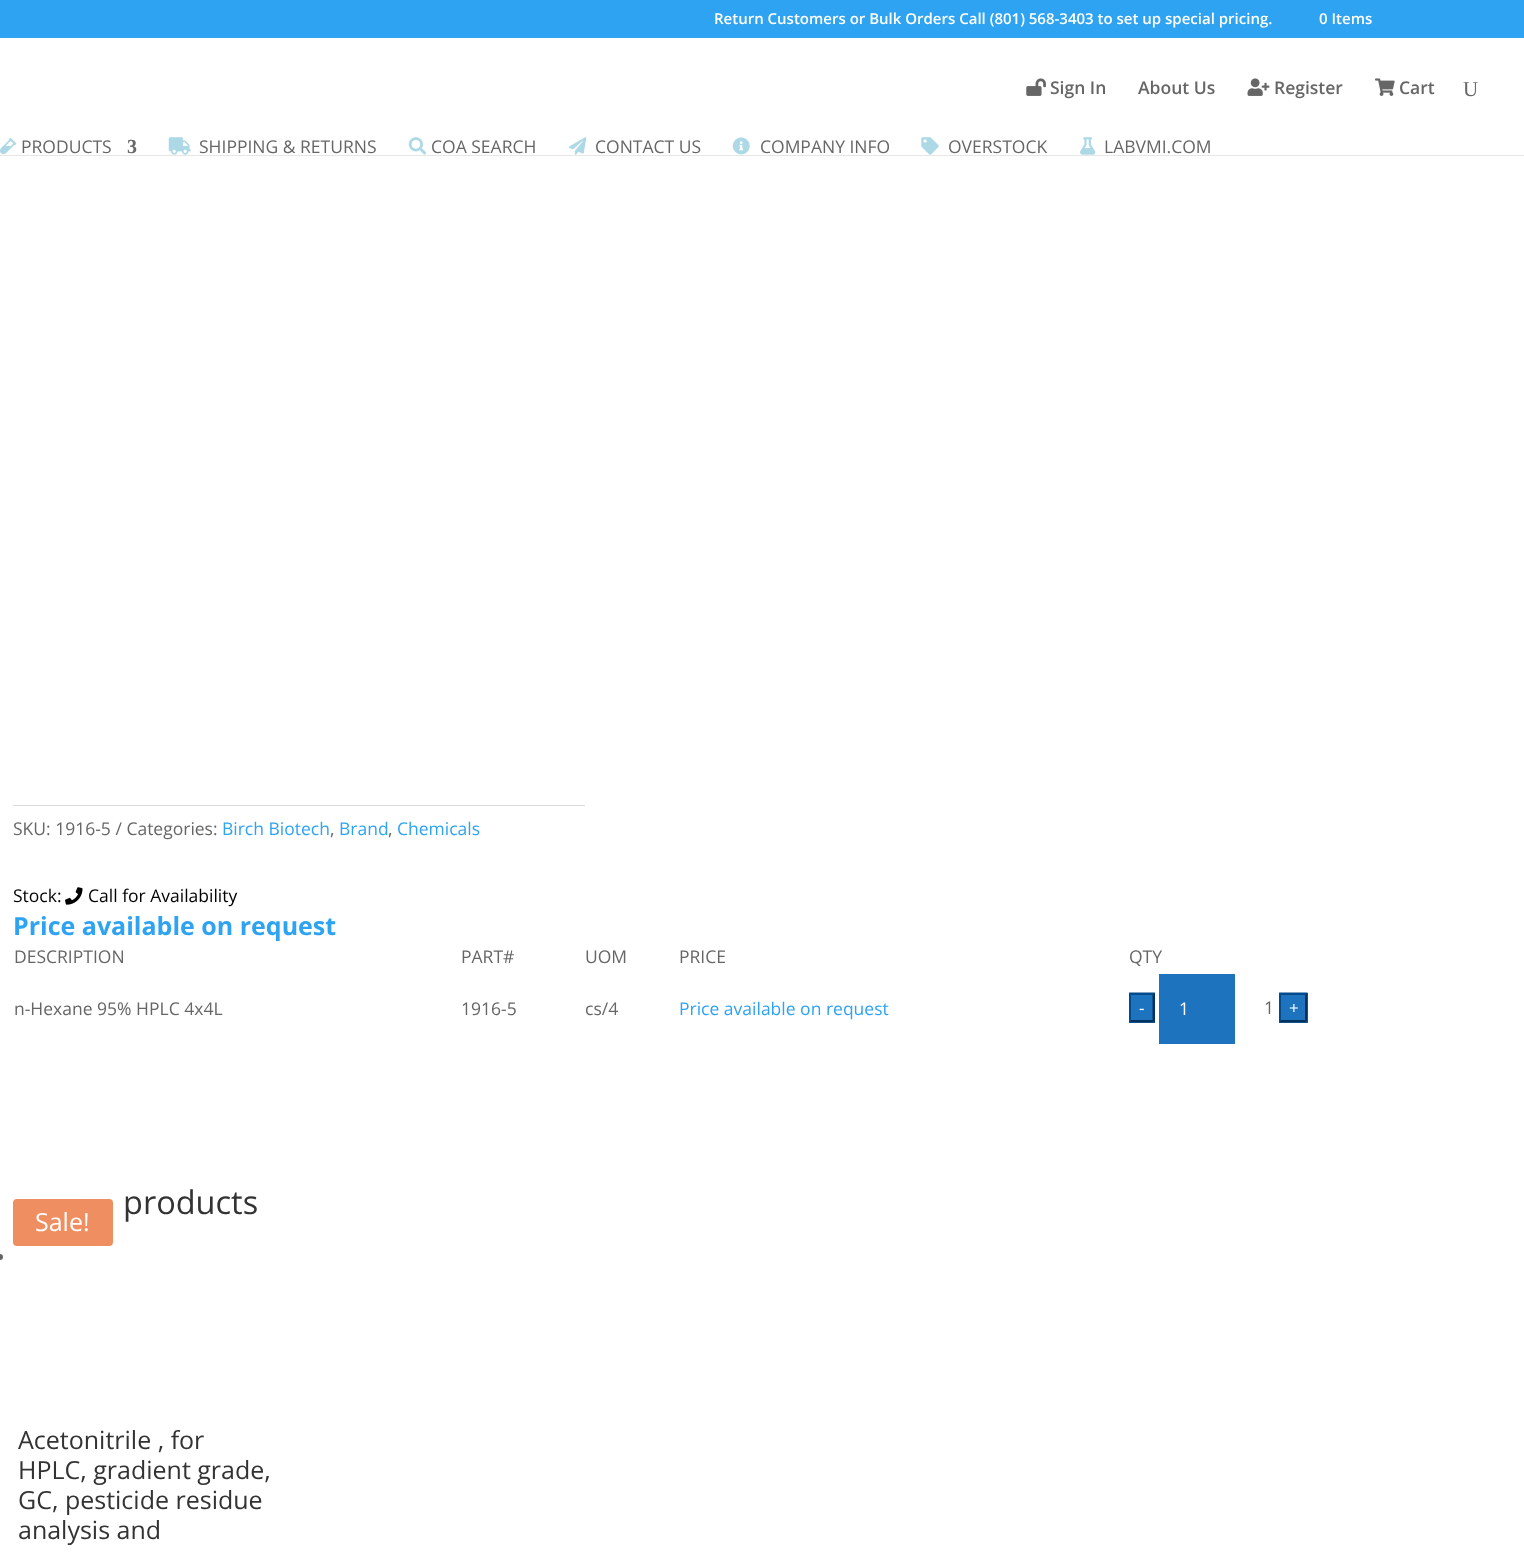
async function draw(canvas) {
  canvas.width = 1524;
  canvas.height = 1560;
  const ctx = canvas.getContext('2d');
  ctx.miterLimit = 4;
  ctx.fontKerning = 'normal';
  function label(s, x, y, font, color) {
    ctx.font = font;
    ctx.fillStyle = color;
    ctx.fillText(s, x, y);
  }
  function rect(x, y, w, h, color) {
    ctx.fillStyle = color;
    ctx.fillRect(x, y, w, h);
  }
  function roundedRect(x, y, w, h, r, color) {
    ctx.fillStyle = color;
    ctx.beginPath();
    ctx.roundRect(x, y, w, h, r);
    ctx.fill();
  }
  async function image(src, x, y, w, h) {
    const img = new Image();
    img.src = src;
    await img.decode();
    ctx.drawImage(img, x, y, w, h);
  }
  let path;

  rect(0, 0, 1524, 1560, '#fff');
  rect(0, 0, 1524, 38, '#2ea3f2');
  label('Return Customers or Bulk Orders Call (801) 568-3403 to set up special pricing.', 714, 24, '600 15px Open Sans', '#fff');
  label('0 Items', 1319, 24, '600 15px Open Sans', '#fff');
  rect(0, 155, 1524, 1, '#e6e6e6');
  await image('assets/img1.png', 1026, 78, 20, 18);
  label('Sign In', 1050, 94, '600 17.5px Open Sans', '#666');
  label('About Us', 1138, 94, '600 17.5px Open Sans', '#666');
  await image('assets/img2.png', 1247, 78, 23, 18);
  label('Register', 1274, 94, '600 17.5px Open Sans', '#666');
  await image('assets/img3.png', 1375, 78, 20, 18);
  label('Cart', 1399, 94, '600 17.5px Open Sans', '#666');
  label('U', 1463, 96, '21px Liberation Serif', '#666');
  await image('assets/img4.png', 0, 137, 17, 18);
  label('PRODUCTS', 21, 153, '17.5px Open Sans', '#666');
  label('3', 127, 153, 'bold 20px Liberation Serif', '#666');
  await image('assets/img5.png', 168, 137, 23, 18);
  label('SHIPPING & RETURNS', 199, 153, '17.5px Open Sans', '#666');
  await image('assets/img6.png', 408, 137, 19, 18);
  label('COA SEARCH', 431, 153, '17.5px Open Sans', '#666');
  await image('assets/img7.png', 568, 137, 19, 18);
  label('CONTACT US', 595, 153, '17.5px Open Sans', '#666');
  await image('assets/img8.png', 732, 137, 18, 18);
  label('COMPANY INFO', 760, 153, '17.5px Open Sans', '#666');
  await image('assets/img9.png', 921, 137, 18, 18);
  label('OVERSTOCK', 948, 153, '17.5px Open Sans', '#666');
  await image('assets/img10.png', 1080, 137, 16, 18);
  label('LABVMI.COM', 1104, 153, '17.5px Open Sans', '#666');
  rect(13, 805, 572, 1, '#dadada');
  label('SKU: 1916-5 / Categories:', 13, 835, '17.5px Open Sans', '#666');
  label('Birch Biotech', 222, 835, '17.5px Open Sans', '#2ea3f2');
  label(',', 330, 835, '17.5px Open Sans', '#666');
  label('Brand', 339, 835, '17.5px Open Sans', '#2ea3f2');
  label(',', 388, 835, '17.5px Open Sans', '#666');
  label('Chemicals', 397, 835, '17.5px Open Sans', '#2ea3f2');
  label('Stock:', 13, 902, '17.5px Open Sans', '#000');
  await image('assets/img11.png', 65, 887, 18, 18);
  label('Call for Availability', 88, 902, '17.5px Open Sans', '#000');
  label('Price available on request', 13, 935, 'bold 25px Open Sans', '#2ea3f2');
  label('DESCRIPTION', 14, 963, '17.5px Open Sans', '#666');
  label('PART#', 461, 963, '17.5px Open Sans', '#666');
  label('UOM', 585, 963, '17.5px Open Sans', '#666');
  label('PRICE', 679, 963, '17.5px Open Sans', '#666');
  label('QTY', 1129, 963, '17.5px Open Sans', '#666');
  label('n-Hexane 95% HPLC 4x4L', 14, 1015, '17.5px Open Sans', '#666');
  label('1916-5', 461, 1015, '17.5px Open Sans', '#666');
  label('cs/4', 585, 1015, '17.5px Open Sans', '#666');
  label('Price available on request', 679, 1015, '17.5px Open Sans', '#2ea3f2');
  rect(1129, 993, 26, 30, '#1e73be');
  ctx.fillStyle = '#014b8c';
  path = new Path2D('M1129 992.5H1155L1152.5 995H1131Z');
  ctx.fill(path);
  ctx.fillStyle = '#01325d';
  path = new Path2D('M1155 992.5V1022.5L1152.5 1020V995Z');
  ctx.fill(path);
  path = new Path2D('M1155 1022.5H1129L1131 1020H1152.5Z');
  ctx.fill(path);
  ctx.fillStyle = '#014b8c';
  path = new Path2D('M1129 1022.5V992.5L1131 995V1020Z');
  ctx.fill(path);
  label('-', 1139, 1014, '17px Open Sans', '#fff');
  rect(1159, 974, 76, 70, '#1e73be');
  label('1', 1179, 1015, '17.5px Open Sans', '#fff');
  label('1', 1264, 1014, '17.5px Open Sans', '#666');
  rect(1279, 993, 29, 30, '#1e73be');
  ctx.fillStyle = '#014b8c';
  path = new Path2D('M1279 992.5H1307.5L1305 995H1281Z');
  ctx.fill(path);
  ctx.fillStyle = '#01325d';
  path = new Path2D('M1307.5 992.5V1022.5L1305 1020V995Z');
  ctx.fill(path);
  path = new Path2D('M1307.5 1022.5H1279L1281 1020H1305Z');
  ctx.fill(path);
  ctx.fillStyle = '#014b8c';
  path = new Path2D('M1279 1022.5V992.5L1281 995V1020Z');
  ctx.fill(path);
  label('+', 1289, 1014, '17px Open Sans', '#fff');
  label('products', 123, 1214, '32.5px Open Sans', '#333');
  roundedRect(13, 1199, 100, 47, 4, '#ef8f61');
  label('Sale!', 35, 1231, '25px Open Sans', '#fff');
  ctx.fillStyle = '#666';
  ctx.beginPath();
  ctx.arc(0, 1257, 3, 0, 2 * Math.PI);
  ctx.fill();
  label('Acetonitrile , for', 18, 1449, '25px Open Sans', '#333');
  label('HPLC, gradient grade,', 18, 1479, '25px Open Sans', '#333');
  label('GC, pesticide residue', 18, 1509, '25px Open Sans', '#333');
  label('analysis and', 18, 1539, '25px Open Sans', '#333');
}

draw(document.querySelector('canvas'));
